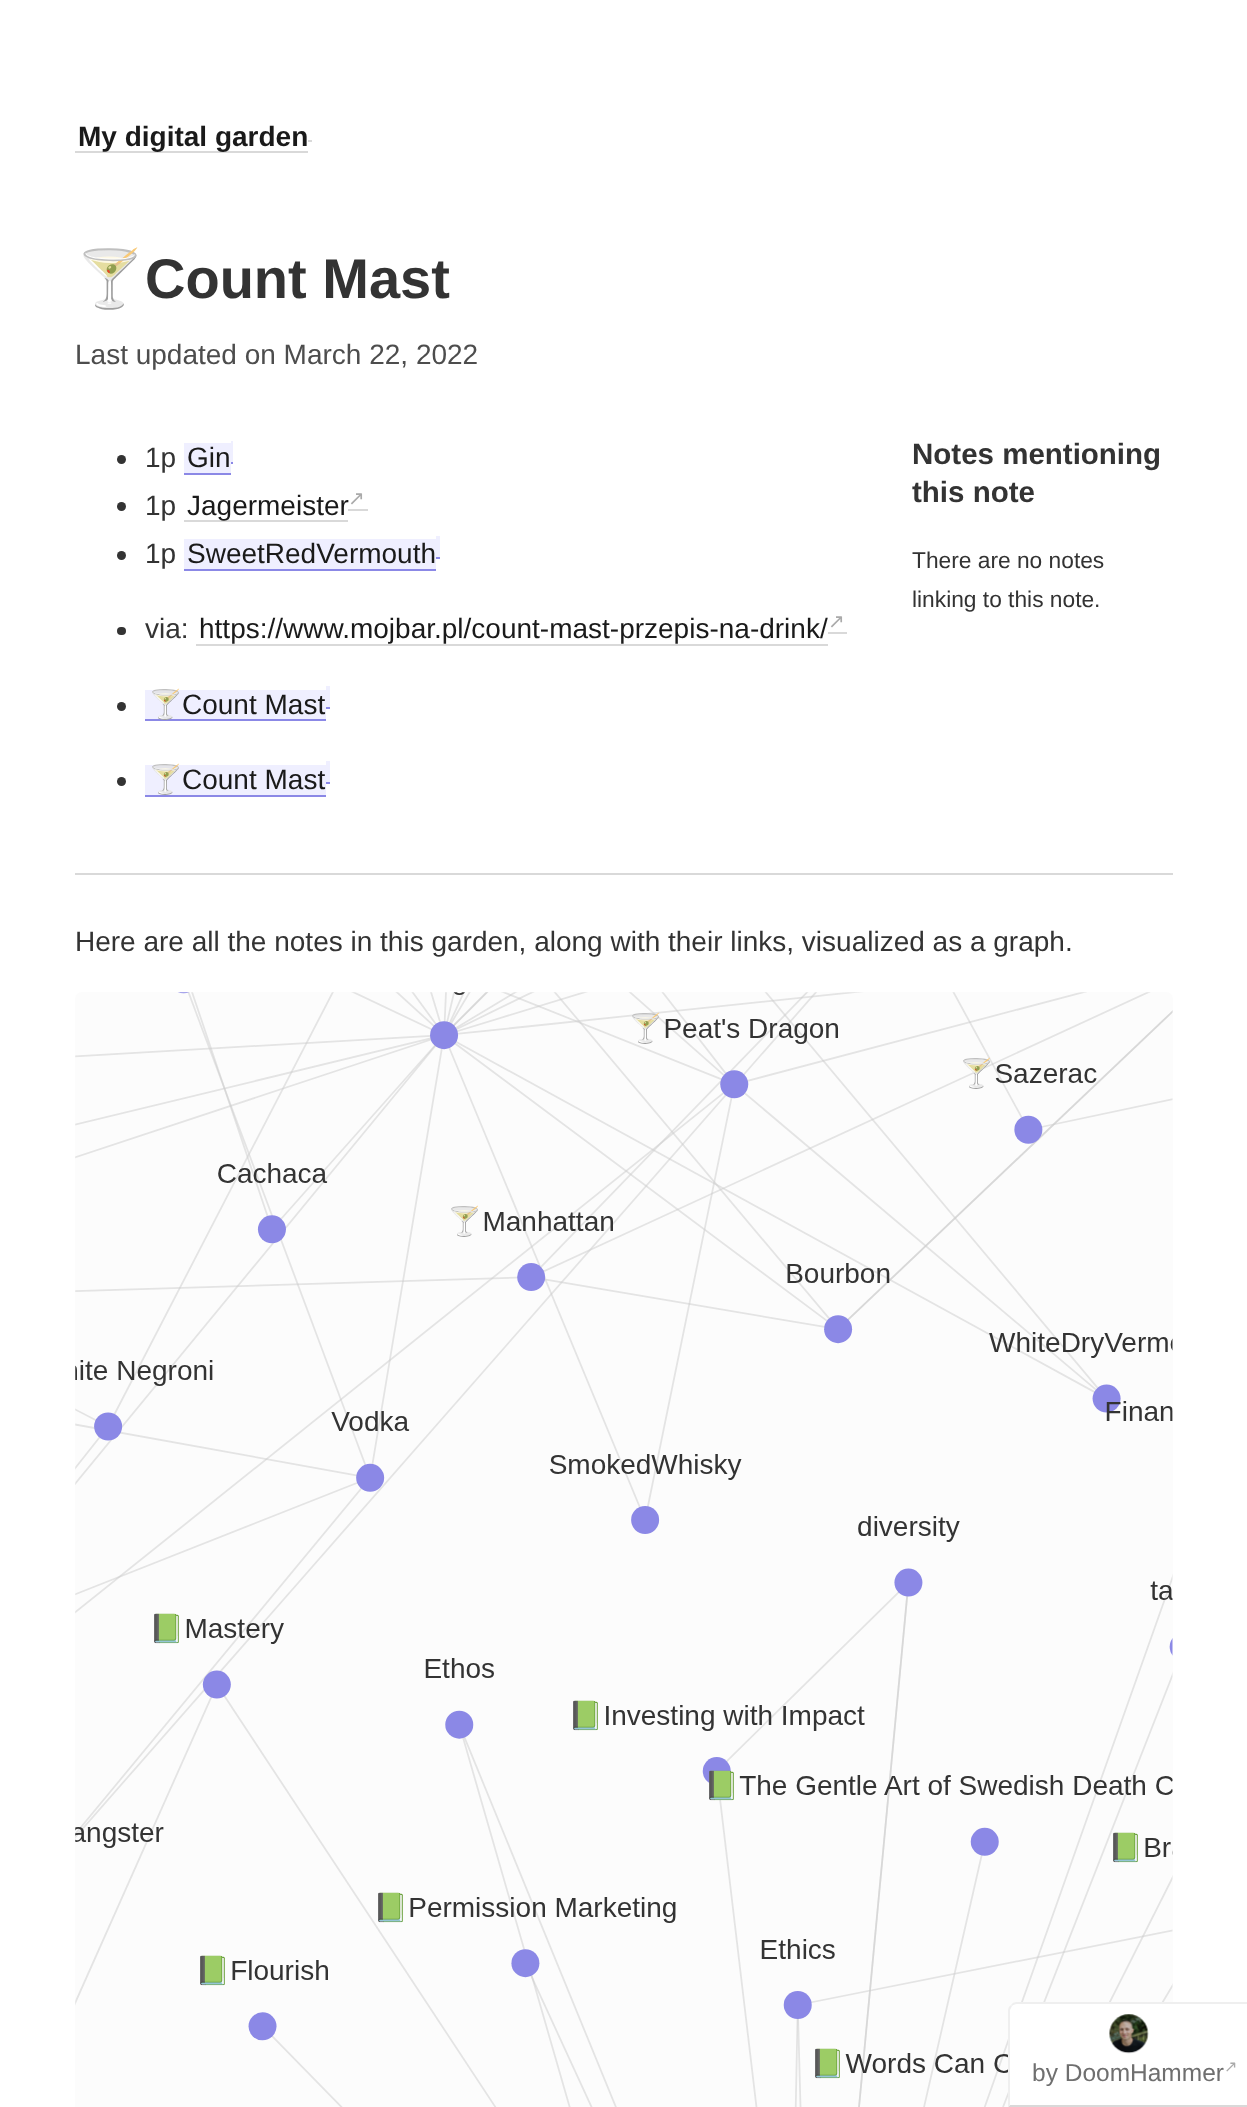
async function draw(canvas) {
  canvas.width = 1247;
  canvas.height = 2107;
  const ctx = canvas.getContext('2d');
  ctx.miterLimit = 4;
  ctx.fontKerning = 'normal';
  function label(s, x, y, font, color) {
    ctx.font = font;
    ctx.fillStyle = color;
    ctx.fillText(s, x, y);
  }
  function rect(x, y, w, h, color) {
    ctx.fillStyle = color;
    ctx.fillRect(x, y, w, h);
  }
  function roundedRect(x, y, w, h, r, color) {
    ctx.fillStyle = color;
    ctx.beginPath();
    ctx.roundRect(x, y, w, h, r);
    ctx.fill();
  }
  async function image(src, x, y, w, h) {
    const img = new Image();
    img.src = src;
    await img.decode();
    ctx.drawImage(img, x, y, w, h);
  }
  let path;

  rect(0, 0, 1247, 2107, '#fff');
  rect(75, 151, 233, 2, '#d9d9d9');
  label('My digital garden', 78, 146, 'bold 28px Liberation Sans', '#1a1a1a');
  rect(308, 140, 4, 2, '#d9d9d9');
  label('🍸', 75, 298, 'bold 56px Noto Color Emoji', '#333');
  label('Count Mast', 145, 298, 'bold 56px Liberation Sans', '#333');
  label('Last updated on March 22, 2022', 75, 364, '28px Liberation Sans', '#4d4d4d');
  ctx.fillStyle = '#333';
  ctx.beginPath();
  ctx.arc(121.5, 459.5, 4.5, 0, 2 * Math.PI);
  ctx.fill();
  label('1p', 145, 467, '28px Liberation Sans', '#333');
  rect(184, 443, 47, 30, '#efefff');
  label('Gin', 187, 467, '28px Liberation Sans', '#1a1a1a');
  rect(184, 473, 47, 2, '#8b88e6');
  rect(231, 441, 2, 23, '#efefff');
  rect(231, 462, 2, 2, '#8b88e6');
  ctx.fillStyle = '#333';
  ctx.beginPath();
  ctx.arc(121.5, 506.5, 4.5, 0, 2 * Math.PI);
  ctx.fill();
  label('1p', 145, 515, '28px Liberation Sans', '#333');
  rect(184, 520, 164, 2, '#d9d9d9');
  label('Jagermeister', 187, 515, '28px Liberation Sans', '#1a1a1a');
  rect(348, 509, 20, 2, '#d9d9d9');
  label('↗', 348, 505, '20px DejaVu Sans', '#aaa');
  ctx.fillStyle = '#333';
  ctx.beginPath();
  ctx.arc(121.5, 555.5, 4.5, 0, 2 * Math.PI);
  ctx.fill();
  label('1p', 145, 563, '28px Liberation Sans', '#333');
  rect(184, 539, 252, 30, '#efefff');
  label('SweetRedVermouth', 187, 563, '28px Liberation Sans', '#1a1a1a');
  rect(184, 569, 252, 2, '#8b88e6');
  rect(436, 536, 4, 22, '#efefff');
  rect(436, 557, 4, 2, '#8b88e6');
  roundedRect(117, 627, 9, 8, 4, '#333');
  label('via:', 145, 638, '28px Liberation Sans', '#333');
  label('https://www.mojbar.pl/count-mast-przepis-na-drink/', 199, 638, '28px Liberation Sans', '#1a1a1a');
  rect(196, 644, 632, 2, '#d9d9d9');
  rect(828, 632, 19, 2, '#d9d9d9');
  label('↗', 828, 628, '20px DejaVu Sans', '#aaa');
  ctx.fillStyle = '#333';
  ctx.beginPath();
  ctx.arc(121.5, 706.5, 4.5, 0, 2 * Math.PI);
  ctx.fill();
  rect(145, 690, 181, 29, '#efefff');
  rect(145, 719, 181, 2, '#8b88e6');
  label('🍸', 148, 714, '28px Noto Color Emoji', '#1a1a1a');
  label('Count Mast', 182, 714, '28px Liberation Sans', '#1a1a1a');
  rect(326, 686, 4, 23, '#efefff');
  rect(326, 707, 4, 2, '#8b88e6');
  ctx.fillStyle = '#333';
  ctx.beginPath();
  ctx.arc(121.5, 781.5, 4.5, 0, 2 * Math.PI);
  ctx.fill();
  rect(145, 765, 181, 30, '#efefff');
  label('🍸', 148, 789, '28px Noto Color Emoji', '#1a1a1a');
  label('Count Mast', 182, 789, '28px Liberation Sans', '#1a1a1a');
  rect(145, 795, 181, 2, '#8b88e6');
  rect(326, 761, 4, 23, '#efefff');
  rect(326, 782, 4, 2, '#8b88e6');
  label('Notes mentioning', 912, 464, 'bold 29.5px Liberation Sans', '#333');
  label('this note', 912, 502, 'bold 29.5px Liberation Sans', '#333');
  label('There are no notes', 912, 568, '22.75px Liberation Sans', '#333');
  label('linking to this note.', 912, 607, '22.75px Liberation Sans', '#333');
  rect(75, 873, 1098, 2, '#d9d9d9');
  label('Here are all the notes in this garden, along with their links, visualized as a graph.', 75, 951, '28px Liberation Sans', '#333');
  roundedRect(75, 992, 1098, 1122, 7, '#fcfcfc');
  await image('assets/img1.png', 75, 992, 1098, 1115);
  ctx.fillStyle = '#fff';
  path = new Path2D('M1017 2002H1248V2107H1008V2011C1008 2006 1012 2002 1017 2002Z');
  ctx.fill(path);
  ctx.fillStyle = '#efefef';
  path = new Path2D('M1017 2002C1014 2002 1012 2003 1011 2005L1012 2006C1013 2005 1015 2004 1017 2004H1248V2002Z');
  ctx.fill(path);
  ctx.fillStyle = '#d9d9d9';
  path = new Path2D('M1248 2107V2105H1010L1008 2107Z');
  ctx.fill(path);
  ctx.fillStyle = '#efefef';
  path = new Path2D('M1008 2107L1010 2105V2010L1012 2006L1011 2005C1009 2006 1008 2008 1008 2011Z');
  ctx.fill(path);
  await image('assets/img2.png', 1109, 2014, 40, 40);
  label('by DoomHammer', 1032, 2081, '24.5px Liberation Sans', '#6f6f6f');
  label('↗', 1224, 2072, '16px DejaVu Sans', '#aaa');
}

draw(document.querySelector('canvas'));
